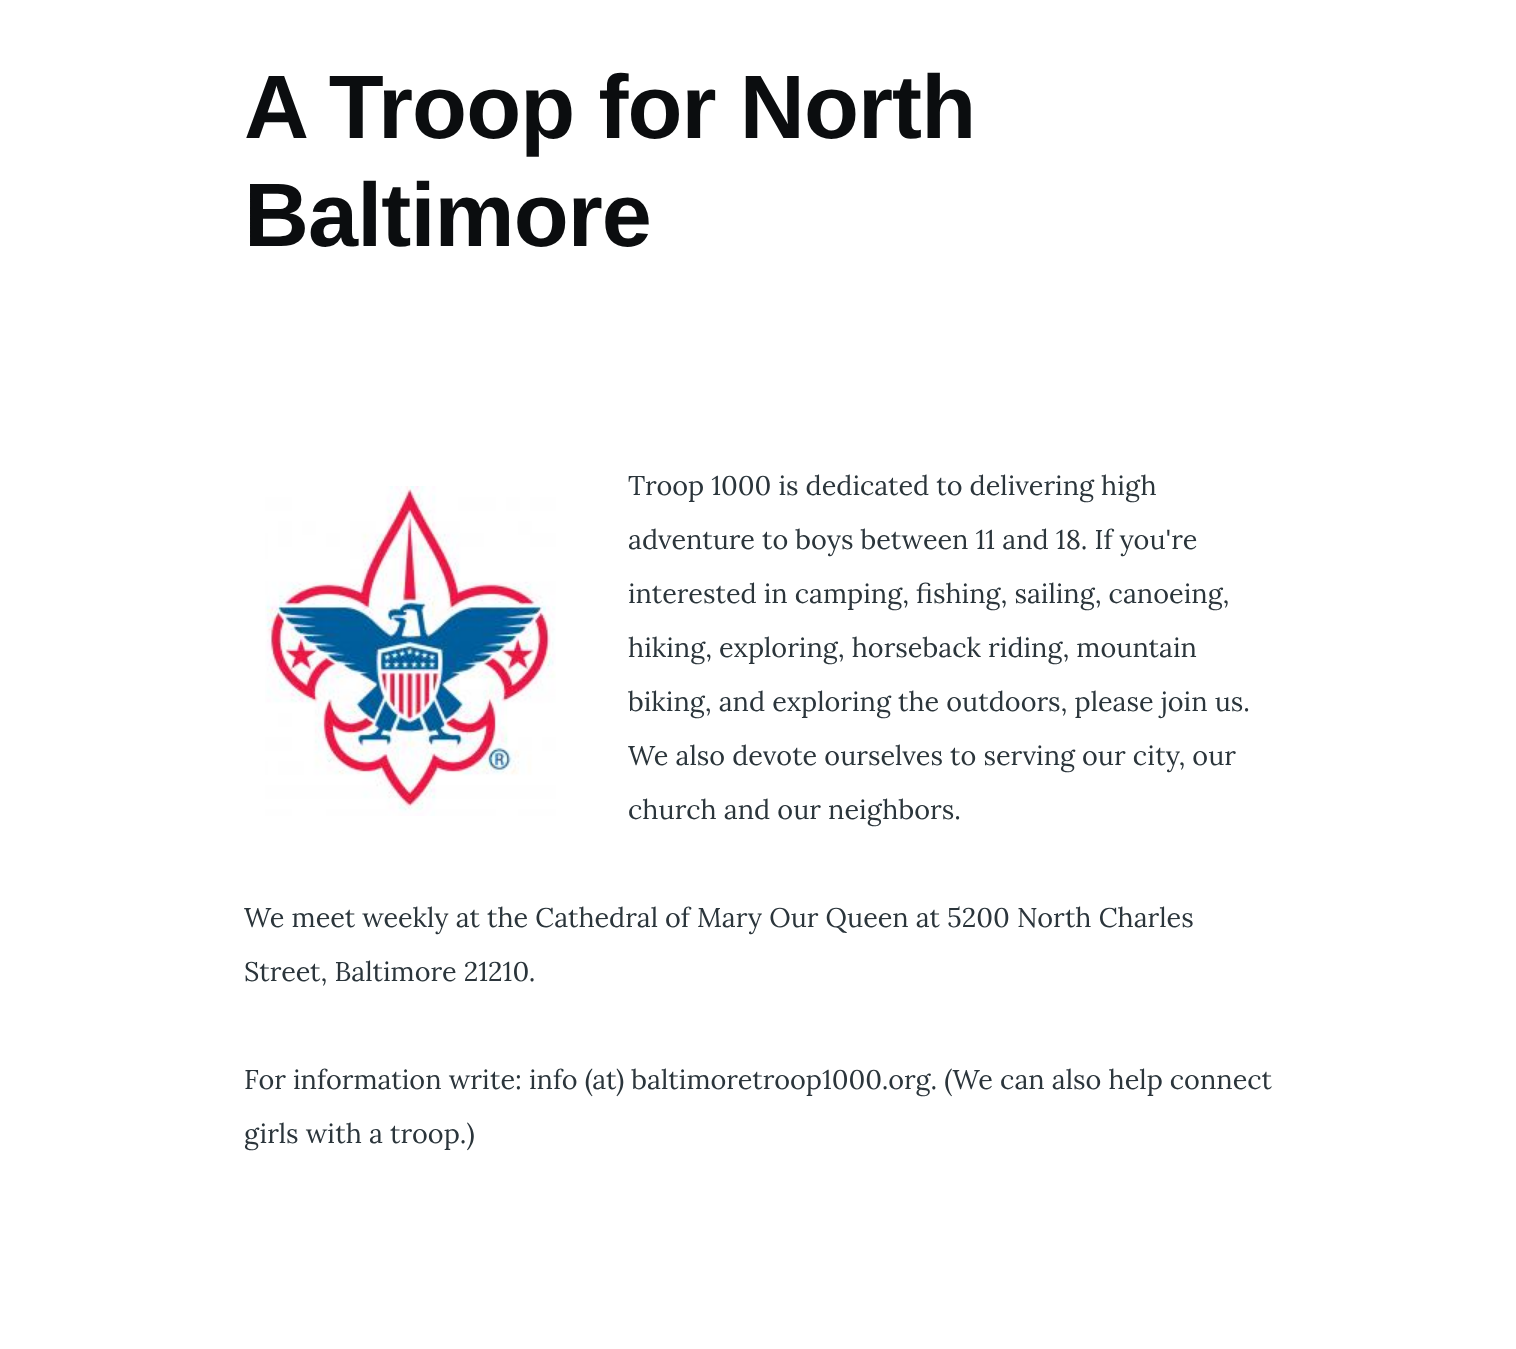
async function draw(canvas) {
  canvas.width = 1516;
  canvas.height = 1349;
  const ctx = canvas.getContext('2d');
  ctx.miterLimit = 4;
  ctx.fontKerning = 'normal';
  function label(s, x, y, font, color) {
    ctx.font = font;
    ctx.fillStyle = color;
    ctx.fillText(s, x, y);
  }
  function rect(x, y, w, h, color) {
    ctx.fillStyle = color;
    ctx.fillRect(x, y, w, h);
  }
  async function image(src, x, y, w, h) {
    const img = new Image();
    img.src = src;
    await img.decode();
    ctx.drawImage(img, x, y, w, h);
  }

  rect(0, 0, 1516, 1349, '#fff');
  ctx.letterSpacing = '-0.9px';
  label('A Troop for North', 244, 138, 'bold 90px Liberation Sans', '#0b0d0f');
  label('Baltimore', 244, 246, 'bold 90px Liberation Sans', '#0b0d0f');
  await image('assets/img1.png', 265, 486, 291, 330);
  ctx.letterSpacing = '0px';
  label('Troop 1000 is dedicated to delivering high', 628, 495, '27px Lora', '#2b353b');
  label('adventure to boys between 11 and 18. If you\'re', 628, 549, '27px Lora', '#2b353b');
  label('interested in camping, fishing, sailing, canoeing,', 628, 603, '27px Lora', '#2b353b');
  label('hiking, exploring, horseback riding, mountain', 628, 657, '27px Lora', '#2b353b');
  label('biking, and exploring the outdoors, please join us.', 628, 711, '27px Lora', '#2b353b');
  label('We also devote ourselves to serving our city, our', 628, 765, '27px Lora', '#2b353b');
  label('church and our neighbors.', 628, 819, '27px Lora', '#2b353b');
  label('We meet weekly at the Cathedral of Mary Our Queen at 5200 North Charles', 244, 927, '27px Lora', '#2b353b');
  label('Street, Baltimore 21210.', 244, 981, '27px Lora', '#2b353b');
  label('For information write: info (at) baltimoretroop1000.org. (We can also help connect', 244, 1089, '27px Lora', '#2b353b');
  label('girls with a troop.)', 244, 1143, '27px Lora', '#2b353b');
}

draw(document.querySelector('canvas'));
